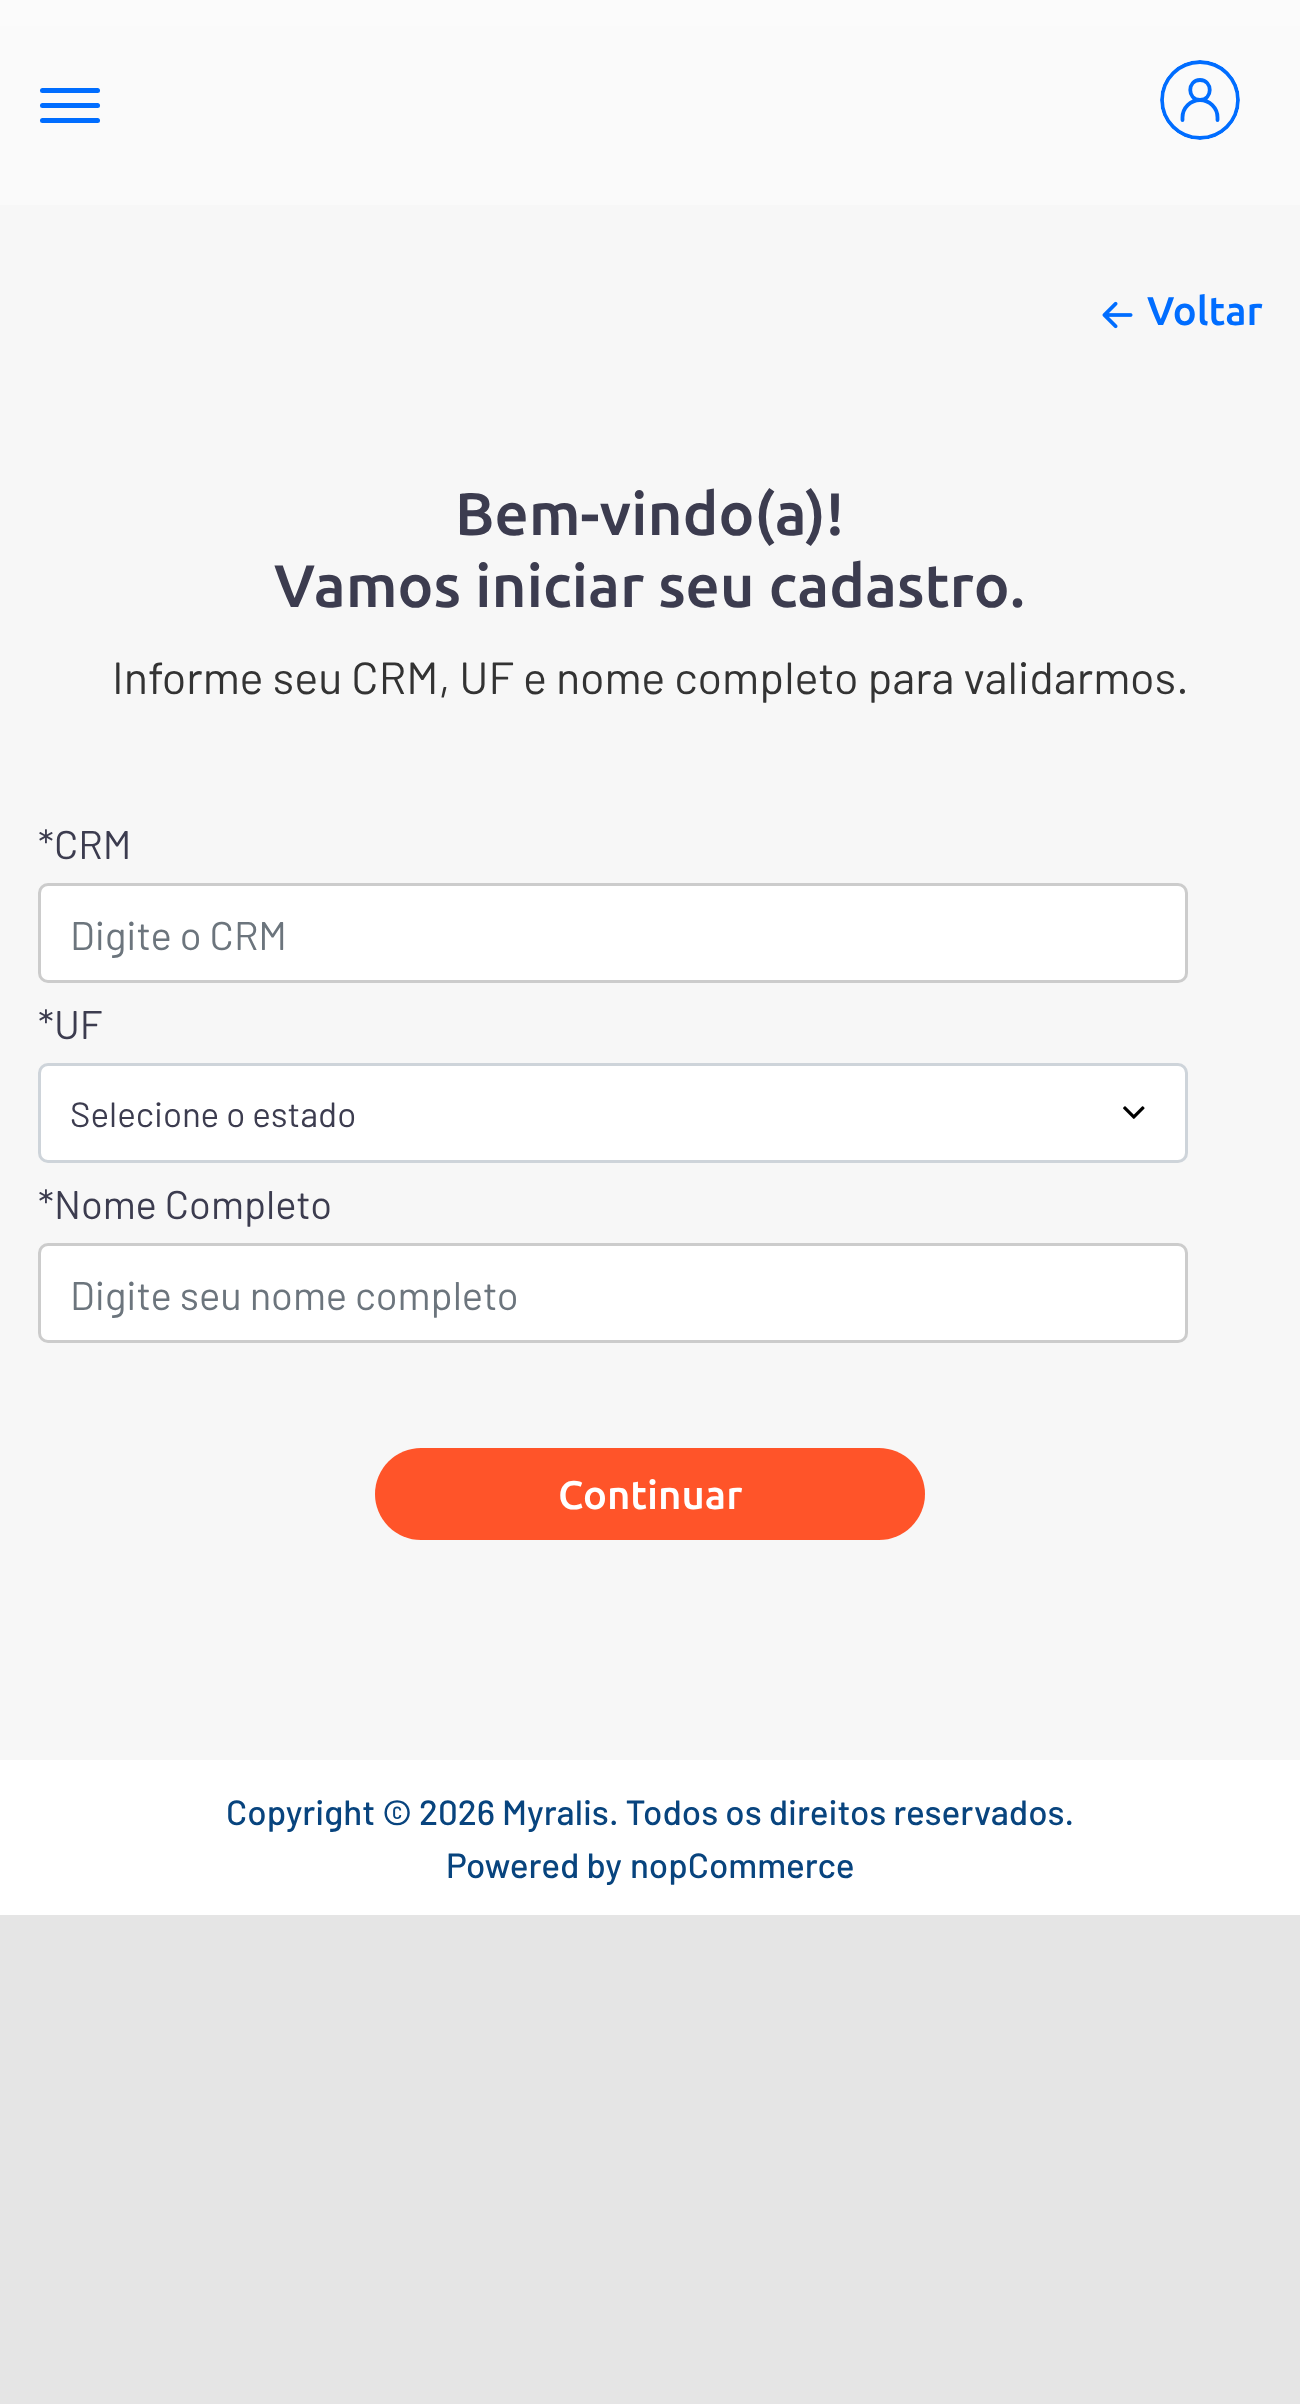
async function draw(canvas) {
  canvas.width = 1300;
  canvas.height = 2404;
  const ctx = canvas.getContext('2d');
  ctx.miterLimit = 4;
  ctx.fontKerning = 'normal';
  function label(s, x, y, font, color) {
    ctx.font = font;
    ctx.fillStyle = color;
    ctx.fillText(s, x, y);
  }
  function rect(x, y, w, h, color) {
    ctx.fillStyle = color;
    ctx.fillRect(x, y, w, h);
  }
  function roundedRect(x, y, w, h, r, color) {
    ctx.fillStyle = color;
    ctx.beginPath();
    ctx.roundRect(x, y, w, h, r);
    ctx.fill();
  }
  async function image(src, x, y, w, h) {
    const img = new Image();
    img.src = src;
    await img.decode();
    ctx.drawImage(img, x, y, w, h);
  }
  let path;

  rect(0, 0, 1300, 2404, '#e5e5e5');
  rect(0, 26, 1300, 179, '#fafafa');
  rect(0, 205, 1300, 1555, '#f7f7f7');
  rect(0, 0, 1300, 26, '#fbfbfb');
  roundedRect(40, 103, 60, 5, 2.5, '#006dff');
  roundedRect(40, 88, 60, 5, 2.5, '#006dff');
  roundedRect(40, 118, 60, 5, 2.5, '#006dff');
  ctx.save();
  ctx.beginPath();
  ctx.roundRect(1160, 60, 80, 80, 40);
  ctx.clip();
  ctx.beginPath();
  ctx.arc(1200, 100, 38, 0, 2 * Math.PI);
  ctx.strokeStyle = '#006dff';
  ctx.lineWidth = 3.8;
  ctx.stroke();
  ctx.restore();
  path = new Path2D('M1182.5 120V117.5C1182.5 108 1190.5 100 1200 100C1209.5 100 1217.5 108 1217.5 117.5V120M1200 100C1213 100 1213 80 1200 80C1187 80 1187 100 1200 100Z');
  ctx.strokeStyle = '#006dff';
  ctx.lineWidth = 3.8;
  ctx.lineCap = 'round';
  ctx.lineJoin = 'round';
  ctx.stroke(path);
  await image('assets/img1.png', 1102, 301, 31, 28);
  label('Voltar', 1147, 325, '500 40px Ubuntu', '#006dff');
  label('Bem-vindo(a)!', 455, 535, '500 60px Ubuntu', '#3c3c4f');
  label('Vamos iniciar seu cadastro.', 274, 607, '500 60px Ubuntu', '#3c3c4f');
  label('Informe seu CRM, UF e nome completo para validarmos.', 112, 694, '45px Barlow', '#333');
  label('*CRM', 38, 859, '40px Barlow', '#3c3c4f');
  ctx.fillStyle = '#fff';
  ctx.beginPath();
  ctx.roundRect(39.5, 884.5, 1147, 97, 8.5);
  ctx.fill();
  ctx.strokeStyle = '#ccc';
  ctx.lineWidth = 3;
  ctx.lineJoin = 'miter';
  ctx.stroke();
  label('Digite o CRM', 70, 950, '40px Barlow', '#6c757d');
  label('*UF', 38, 1039, '40px Barlow', '#3c3c4f');
  roundedRect(40, 1065, 1145, 95, 8, '#fff');
  await image('assets/img2.png', 1123, 1106, 22, 13);
  ctx.beginPath();
  ctx.roundRect(39.5, 1064.5, 1147, 97, 8.5);
  ctx.strokeStyle = '#ced4da';
  ctx.stroke();
  label('Selecione o estado', 70, 1127, '35px Barlow', '#3c3c4f');
  label('*Nome Completo', 38, 1219, '40px Barlow', '#3c3c4f');
  ctx.fillStyle = '#fff';
  ctx.beginPath();
  ctx.roundRect(39.5, 1244.5, 1147, 97, 8.5);
  ctx.fill();
  ctx.strokeStyle = '#ccc';
  ctx.stroke();
  label('Digite seu nome completo', 70, 1310, '40px Barlow', '#6c757d');
  roundedRect(375, 1448, 550, 92, 46, '#ff5429');
  label('Continuar', 558, 1509, '500 40px Ubuntu', '#fff');
  rect(0, 1760, 1300, 155, '#fff');
  label('Copyright © 2026 Myralis. Todos os direitos reservados.', 226, 1825, '500 35px Barlow', '#08447e');
  label('Powered by', 446, 1878, '500 35px Barlow', '#08447e');
  label('nopCommerce', 630, 1878, '500 35px Barlow', '#08447e');
}

draw(document.querySelector('canvas'));
